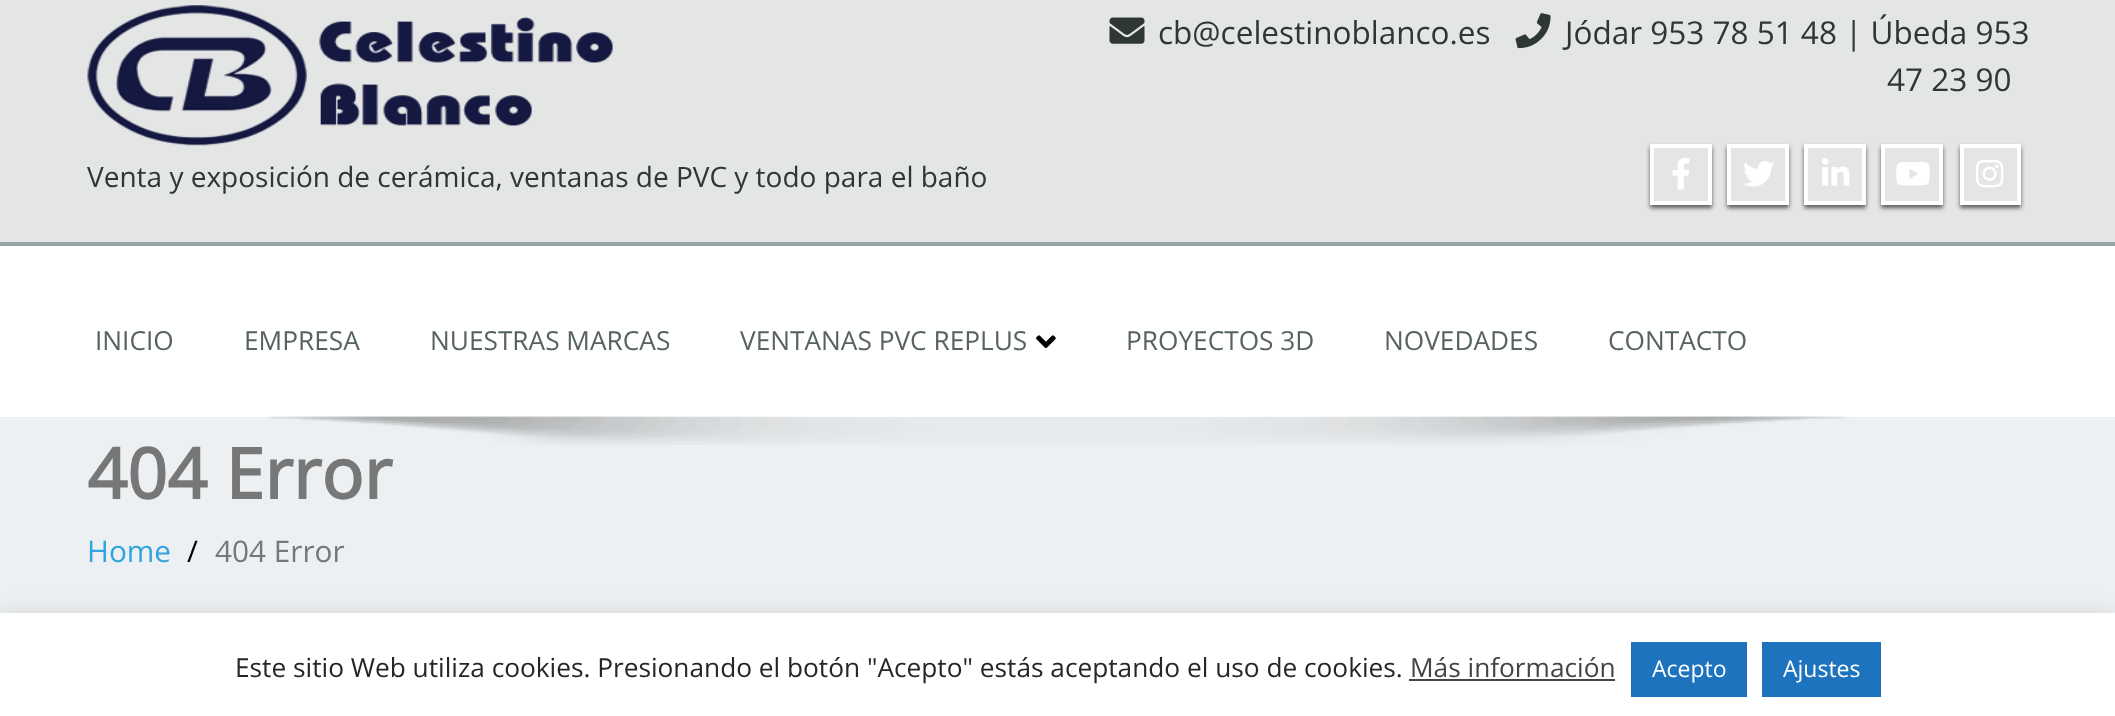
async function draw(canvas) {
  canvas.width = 2115;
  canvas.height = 716;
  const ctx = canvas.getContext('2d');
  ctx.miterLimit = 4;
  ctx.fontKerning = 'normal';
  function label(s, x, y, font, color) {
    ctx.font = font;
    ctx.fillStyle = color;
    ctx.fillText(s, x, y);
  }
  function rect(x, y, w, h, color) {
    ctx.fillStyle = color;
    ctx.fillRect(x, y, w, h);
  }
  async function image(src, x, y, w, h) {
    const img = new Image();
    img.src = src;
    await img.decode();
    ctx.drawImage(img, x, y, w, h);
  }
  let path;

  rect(0, 0, 2115, 716, '#fff');
  rect(0, 0, 2115, 242, '#e4e5e5');
  await image('assets/img1.png', 1109, 17, 36, 27);
  label('cb@celestinoblanco.es', 1158, 44, '31.5px Open Sans', '#2e3636');
  await image('assets/img2.png', 1515, 13, 36, 36);
  label('Jódar 953 78 51 48 | Úbeda 953', 1565, 44, '31.5px Open Sans', '#2e3636');
  label('47 23 90', 1887, 91, '31.5px Open Sans', '#2e3636');
  ctx.save();
  path = new Path2D('M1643 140H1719V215H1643ZM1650 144H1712V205H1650Z');
  ctx.clip(path, 'evenodd');
  ctx.fillStyle = '#00000099';
  ctx.filter = 'blur(2px)';
  ctx.beginPath();
  ctx.rect(1650, 147, 62, 61);
  ctx.fill();
  ctx.filter = 'none';
  ctx.restore();
  ctx.strokeStyle = '#fff';
  ctx.lineWidth = 4;
  ctx.strokeRect(1652, 146, 58, 57);
  await image('assets/img3.png', 1672, 158, 18, 32);
  ctx.save();
  path = new Path2D('M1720 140H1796V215H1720ZM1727 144H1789V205H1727Z');
  ctx.clip(path, 'evenodd');
  ctx.fillStyle = '#00000099';
  ctx.filter = 'blur(2px)';
  ctx.beginPath();
  ctx.rect(1727, 147, 62, 61);
  ctx.fill();
  ctx.filter = 'none';
  ctx.restore();
  ctx.strokeRect(1729, 146, 58, 57);
  await image('assets/img4.png', 1743, 161, 31, 26);
  ctx.save();
  path = new Path2D('M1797 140H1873V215H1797ZM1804 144H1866V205H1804Z');
  ctx.clip(path, 'evenodd');
  ctx.fillStyle = '#00000099';
  ctx.filter = 'blur(2px)';
  ctx.beginPath();
  ctx.rect(1804, 147, 62, 61);
  ctx.fill();
  ctx.filter = 'none';
  ctx.restore();
  ctx.strokeRect(1806, 146, 58, 57);
  await image('assets/img5.png', 1821, 158, 29, 28);
  ctx.save();
  path = new Path2D('M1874 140H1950V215H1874ZM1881 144H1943V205H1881Z');
  ctx.clip(path, 'evenodd');
  ctx.fillStyle = '#00000099';
  ctx.filter = 'blur(2px)';
  ctx.beginPath();
  ctx.rect(1881, 147, 62, 61);
  ctx.fill();
  ctx.filter = 'none';
  ctx.restore();
  ctx.strokeRect(1883, 146, 58, 57);
  await image('assets/img6.png', 1896, 162, 34, 24);
  ctx.save();
  path = new Path2D('M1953 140H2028V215H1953ZM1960 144H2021V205H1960Z');
  ctx.clip(path, 'evenodd');
  ctx.fillStyle = '#00000099';
  ctx.filter = 'blur(2px)';
  ctx.beginPath();
  ctx.rect(1960, 147, 61, 61);
  ctx.fill();
  ctx.filter = 'none';
  ctx.restore();
  ctx.strokeRect(1962, 146, 57, 57);
  await image('assets/img7.png', 1975, 160, 29, 28);
  await image('assets/img8.png', 87, 5, 526, 141);
  label('Venta y exposición de cerámica, ventanas de PVC y todo para el baño', 87, 187, '28px Open Sans', '#2e3636');
  rect(0, 242, 2115, 4, '#95a5a5');
  label('INICIO', 95, 350, '26.25px Open Sans', '#576262');
  label('EMPRESA', 244, 350, '26.25px Open Sans', '#576262');
  label('NUESTRAS MARCAS', 430, 350, '26.25px Open Sans', '#576262');
  label('VENTANAS PVC REPLUS', 740, 350, '26.25px Open Sans', '#576262');
  await image('assets/img9.png', 1036, 335, 20, 13);
  label('PROYECTOS 3D', 1126, 350, '26.25px Open Sans', '#576262');
  label('NOVEDADES', 1384, 350, '26.25px Open Sans', '#576262');
  label('CONTACTO', 1608, 350, '26.25px Open Sans', '#576262');
  rect(0, 417, 2115, 196, '#edf0f2');
  await image('assets/img10.png', 266, 416, 1583, 29);
  label('404 Error', 87, 499, 'bold 70px Open Sans', '#777');
  label('Home', 87, 562, '29.75px Open Sans', '#31a3dd');
  label('/', 187, 562, '29.75px Open Sans', '#000');
  label('404 Error', 215, 562, '29.75px Open Sans', '#777');
  ctx.fillStyle = '#acabab4d';
  ctx.filter = 'blur(9px)';
  ctx.beginPath();
  ctx.rect(0, 611, 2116, 105);
  ctx.fill();
  ctx.filter = 'none';
  rect(0, 613, 2115, 103, '#fff');
  label('Este sitio Web utiliza cookies. Presionando el botón "Acepto" estás aceptando el uso de cookies.', 235, 677, '26.25px Open Sans', '#262626');
  label('Más información', 1410, 677, '26.25px Open Sans', '#444');
  rect(1409, 679, 206, 2, '#444');
  rect(1631, 642, 116, 55, '#1e73be');
  label('Acepto', 1652, 677, '23px Open Sans', '#fff');
  rect(1762, 642, 119, 55, '#1e73be');
  label('Ajustes', 1783, 677, '23px Open Sans', '#fff');
}

draw(document.querySelector('canvas'));
